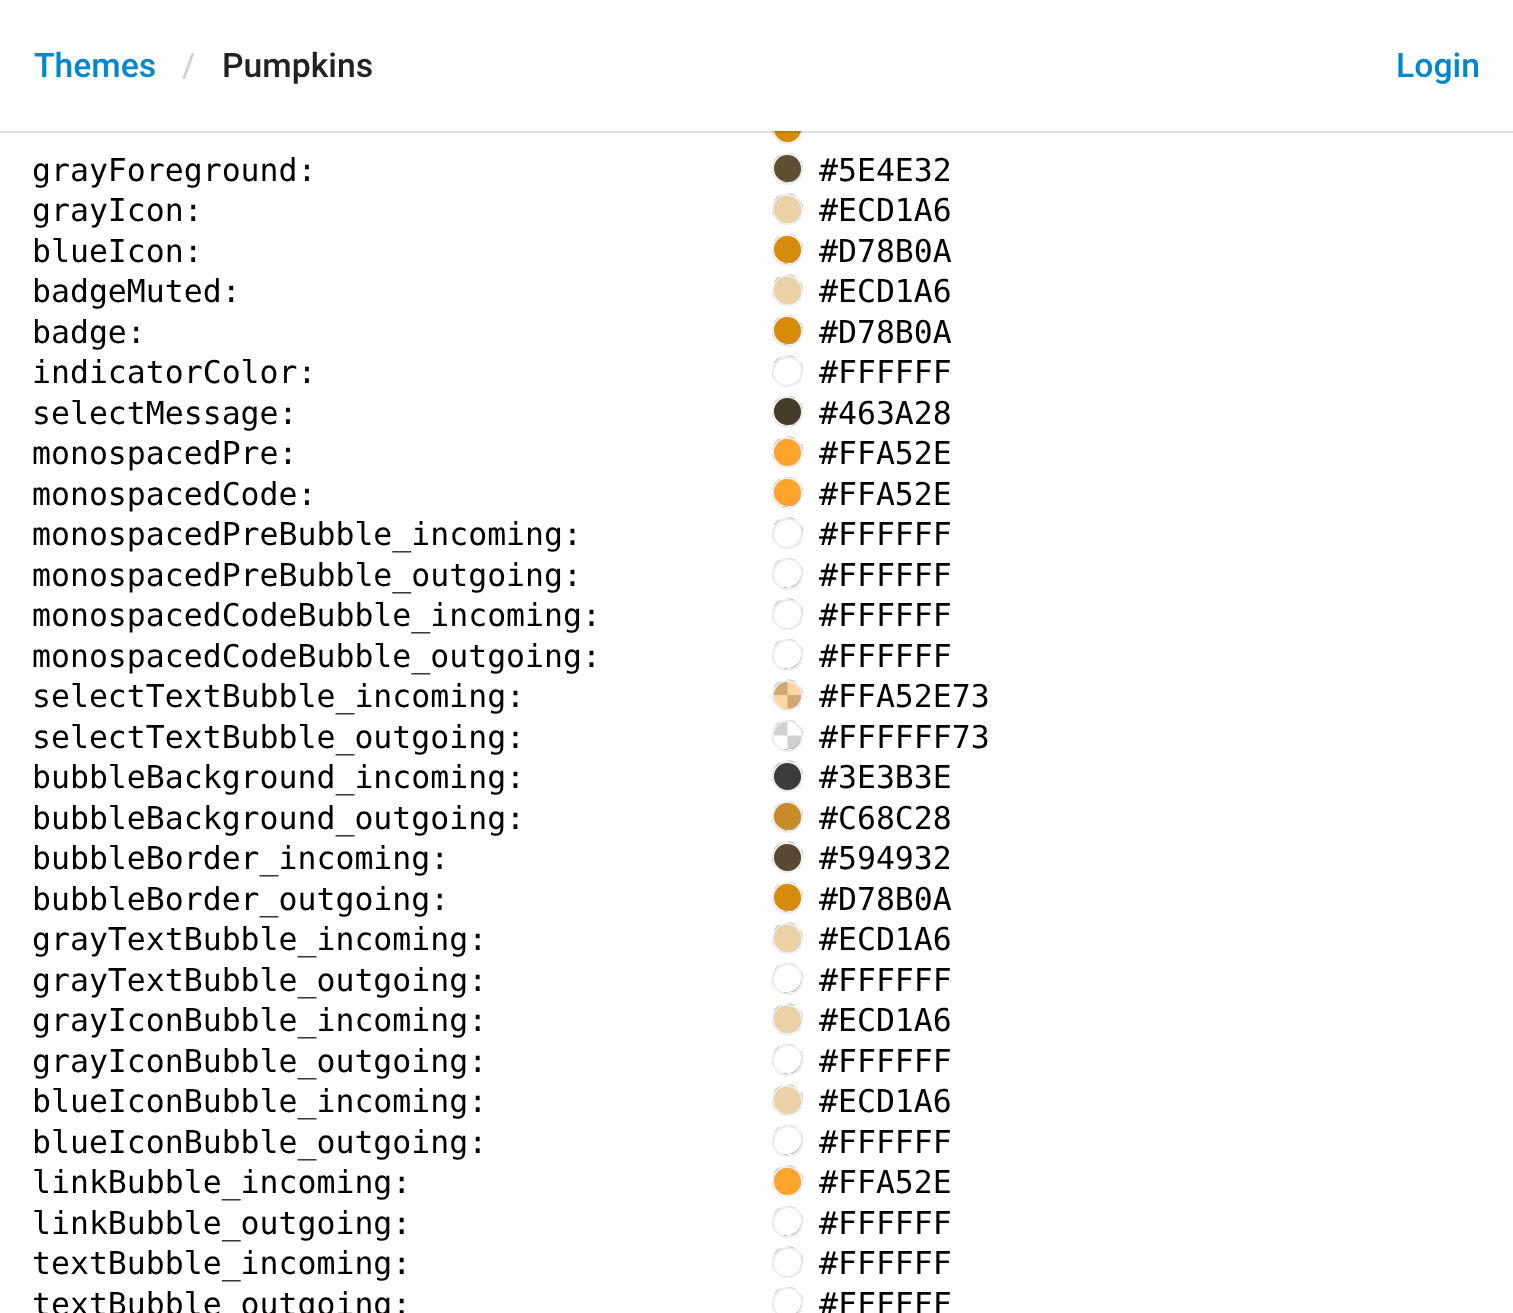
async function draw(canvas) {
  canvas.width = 1513;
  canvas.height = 1313;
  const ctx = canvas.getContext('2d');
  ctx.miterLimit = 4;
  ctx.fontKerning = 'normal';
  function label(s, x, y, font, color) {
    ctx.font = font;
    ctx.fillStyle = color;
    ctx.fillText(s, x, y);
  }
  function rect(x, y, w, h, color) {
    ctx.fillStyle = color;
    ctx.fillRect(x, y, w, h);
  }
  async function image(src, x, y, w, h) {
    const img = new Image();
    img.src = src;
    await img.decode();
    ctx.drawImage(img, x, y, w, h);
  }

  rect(0, 0, 1513, 1313, '#fff');
  await image('assets/img1.png', 772, 131, 30, 13);
  ctx.beginPath();
  ctx.arc(787.5, 128.5, 14.5, 0, 2 * Math.PI);
  ctx.strokeStyle = '#ededed';
  ctx.lineWidth = 2;
  ctx.stroke();
  ctx.fillStyle = '#d78b0a';
  ctx.beginPath();
  ctx.arc(787.5, 128.5, 13.5, 0, 2 * Math.PI);
  ctx.fill();
  rect(0, 131, 1513, 2, '#0000001f');
  rect(772, 113, 31, 18, '#fff');
  label('Themes', 34, 77, '500 33.75px Roboto', '#08c');
  label('/', 182, 77, '500 33.75px Roboto', '#d4d4d4');
  label('Pumpkins', 222, 77, '500 33.75px Roboto', '#222');
  label('Login', 1396, 77, '500 33.75px Roboto', '#08c');
  label('grayForeground:', 32, 181, '31.5px DejaVu Sans Mono', '#000');
  await image('assets/img2.png', 772, 153, 31, 31);
  ctx.beginPath();
  ctx.roundRect(773, 154, 29, 30, 14.5);
  ctx.stroke();
  ctx.fillStyle = '#5e4e32';
  ctx.beginPath();
  ctx.arc(787.5, 168.5, 13.5, 0, 2 * Math.PI);
  ctx.fill();
  label('#5E4E32', 819, 181, '31.5px DejaVu Sans Mono', '#000');
  label('grayIcon:', 32, 221, '31.5px DejaVu Sans Mono', '#000');
  await image('assets/img3.png', 771, 193, 33, 32);
  ctx.beginPath();
  ctx.arc(787.5, 209.5, 14.5, 0, 2 * Math.PI);
  ctx.stroke();
  ctx.fillStyle = '#ecd1a6';
  ctx.beginPath();
  ctx.arc(787.5, 209.5, 13.5, 0, 2 * Math.PI);
  ctx.fill();
  label('#ECD1A6', 819, 221, '31.5px DejaVu Sans Mono', '#000');
  label('blueIcon:', 32, 262, '31.5px DejaVu Sans Mono', '#000');
  await image('assets/img4.png', 772, 234, 31, 31);
  ctx.beginPath();
  ctx.roundRect(773, 235, 29, 30, 14.5);
  ctx.stroke();
  ctx.fillStyle = '#d78b0a';
  ctx.beginPath();
  ctx.arc(787.5, 249.5, 13.5, 0, 2 * Math.PI);
  ctx.fill();
  label('#D78B0A', 819, 262, '31.5px DejaVu Sans Mono', '#000');
  label('badgeMuted:', 32, 302, '31.5px DejaVu Sans Mono', '#000');
  await image('assets/img3.png', 771, 274, 33, 32);
  ctx.beginPath();
  ctx.arc(787.5, 290.5, 14.5, 0, 2 * Math.PI);
  ctx.stroke();
  ctx.fillStyle = '#ecd1a6';
  ctx.beginPath();
  ctx.arc(787.5, 290.5, 13.5, 0, 2 * Math.PI);
  ctx.fill();
  label('#ECD1A6', 819, 302, '31.5px DejaVu Sans Mono', '#000');
  label('badge:', 32, 343, '31.5px DejaVu Sans Mono', '#000');
  await image('assets/img4.png', 772, 315, 31, 31);
  ctx.beginPath();
  ctx.roundRect(773, 316, 29, 30, 14.5);
  ctx.stroke();
  ctx.fillStyle = '#d78b0a';
  ctx.beginPath();
  ctx.arc(787.5, 330.5, 13.5, 0, 2 * Math.PI);
  ctx.fill();
  label('#D78B0A', 819, 343, '31.5px DejaVu Sans Mono', '#000');
  label('indicatorColor:', 32, 383, '31.5px DejaVu Sans Mono', '#000');
  await image('assets/img3.png', 771, 355, 33, 32);
  ctx.beginPath();
  ctx.arc(787.5, 371.5, 14.5, 0, 2 * Math.PI);
  ctx.stroke();
  ctx.fillStyle = '#fff';
  ctx.beginPath();
  ctx.arc(787.5, 371.5, 13.5, 0, 2 * Math.PI);
  ctx.fill();
  label('#FFFFFF', 819, 383, '31.5px DejaVu Sans Mono', '#000');
  label('selectMessage:', 32, 424, '31.5px DejaVu Sans Mono', '#000');
  await image('assets/img4.png', 772, 396, 31, 31);
  ctx.beginPath();
  ctx.roundRect(773, 397, 29, 30, 14.5);
  ctx.stroke();
  ctx.fillStyle = '#463a28';
  ctx.beginPath();
  ctx.arc(787.5, 411.5, 13.5, 0, 2 * Math.PI);
  ctx.fill();
  label('#463A28', 819, 424, '31.5px DejaVu Sans Mono', '#000');
  label('monospacedPre:', 32, 464, '31.5px DejaVu Sans Mono', '#000');
  await image('assets/img3.png', 771, 436, 33, 32);
  ctx.beginPath();
  ctx.arc(787.5, 452.5, 14.5, 0, 2 * Math.PI);
  ctx.stroke();
  ctx.fillStyle = '#ffa52e';
  ctx.beginPath();
  ctx.arc(787.5, 452.5, 13.5, 0, 2 * Math.PI);
  ctx.fill();
  label('#FFA52E', 819, 464, '31.5px DejaVu Sans Mono', '#000');
  label('monospacedCode:', 32, 505, '31.5px DejaVu Sans Mono', '#000');
  await image('assets/img4.png', 772, 477, 31, 31);
  ctx.beginPath();
  ctx.roundRect(773, 478, 29, 30, 14.5);
  ctx.stroke();
  ctx.fillStyle = '#ffa52e';
  ctx.beginPath();
  ctx.arc(787.5, 492.5, 13.5, 0, 2 * Math.PI);
  ctx.fill();
  label('#FFA52E', 819, 505, '31.5px DejaVu Sans Mono', '#000');
  label('monospacedPreBubble_incoming:', 32, 545, '31.5px DejaVu Sans Mono', '#000');
  await image('assets/img5.png', 771, 517, 33, 32);
  ctx.beginPath();
  ctx.arc(787.5, 533.5, 14.5, 0, 2 * Math.PI);
  ctx.stroke();
  ctx.fillStyle = '#fff';
  ctx.beginPath();
  ctx.arc(787.5, 533.5, 13.5, 0, 2 * Math.PI);
  ctx.fill();
  label('#FFFFFF', 819, 545, '31.5px DejaVu Sans Mono', '#000');
  label('monospacedPreBubble_outgoing:', 32, 586, '31.5px DejaVu Sans Mono', '#000');
  await image('assets/img4.png', 772, 558, 31, 31);
  ctx.beginPath();
  ctx.roundRect(773, 559, 29, 30, 14.5);
  ctx.stroke();
  ctx.fillStyle = '#fff';
  ctx.beginPath();
  ctx.arc(787.5, 573.5, 13.5, 0, 2 * Math.PI);
  ctx.fill();
  label('#FFFFFF', 819, 586, '31.5px DejaVu Sans Mono', '#000');
  label('monospacedCodeBubble_incoming:', 32, 626, '31.5px DejaVu Sans Mono', '#000');
  await image('assets/img3.png', 771, 598, 33, 32);
  ctx.beginPath();
  ctx.arc(787.5, 614.5, 14.5, 0, 2 * Math.PI);
  ctx.stroke();
  ctx.fillStyle = '#fff';
  ctx.beginPath();
  ctx.arc(787.5, 614.5, 13.5, 0, 2 * Math.PI);
  ctx.fill();
  label('#FFFFFF', 819, 626, '31.5px DejaVu Sans Mono', '#000');
  label('monospacedCodeBubble_outgoing:', 32, 667, '31.5px DejaVu Sans Mono', '#000');
  await image('assets/img6.png', 772, 639, 31, 31);
  ctx.beginPath();
  ctx.roundRect(773, 640, 29, 30, 14.5);
  ctx.stroke();
  ctx.fillStyle = '#fff';
  ctx.beginPath();
  ctx.arc(787.5, 654.5, 13.5, 0, 2 * Math.PI);
  ctx.fill();
  label('#FFFFFF', 819, 667, '31.5px DejaVu Sans Mono', '#000');
  label('selectTextBubble_incoming:', 32, 707, '31.5px DejaVu Sans Mono', '#000');
  await image('assets/img7.png', 771, 679, 33, 32);
  ctx.beginPath();
  ctx.arc(787.5, 695.5, 14.5, 0, 2 * Math.PI);
  ctx.stroke();
  ctx.fillStyle = '#ffa52e73';
  ctx.beginPath();
  ctx.arc(787.5, 695.5, 13.5, 0, 2 * Math.PI);
  ctx.fill();
  label('#FFA52E73', 819, 707, '31.5px DejaVu Sans Mono', '#000');
  label('selectTextBubble_outgoing:', 32, 748, '31.5px DejaVu Sans Mono', '#000');
  await image('assets/img4.png', 772, 720, 31, 31);
  ctx.beginPath();
  ctx.roundRect(773, 721, 29, 30, 14.5);
  ctx.stroke();
  ctx.fillStyle = '#ffffff73';
  ctx.beginPath();
  ctx.arc(787.5, 735.5, 13.5, 0, 2 * Math.PI);
  ctx.fill();
  label('#FFFFFF73', 819, 748, '31.5px DejaVu Sans Mono', '#000');
  label('bubbleBackground_incoming:', 32, 788, '31.5px DejaVu Sans Mono', '#000');
  await image('assets/img3.png', 771, 760, 33, 32);
  ctx.beginPath();
  ctx.arc(787.5, 776.5, 14.5, 0, 2 * Math.PI);
  ctx.stroke();
  ctx.fillStyle = '#3e3b3e';
  ctx.beginPath();
  ctx.arc(787.5, 776.5, 13.5, 0, 2 * Math.PI);
  ctx.fill();
  label('#3E3B3E', 819, 788, '31.5px DejaVu Sans Mono', '#000');
  label('bubbleBackground_outgoing:', 32, 829, '31.5px DejaVu Sans Mono', '#000');
  await image('assets/img6.png', 772, 801, 31, 31);
  ctx.beginPath();
  ctx.roundRect(773, 802, 29, 30, 14.5);
  ctx.stroke();
  ctx.fillStyle = '#c68c28';
  ctx.beginPath();
  ctx.arc(787.5, 816.5, 13.5, 0, 2 * Math.PI);
  ctx.fill();
  label('#C68C28', 819, 829, '31.5px DejaVu Sans Mono', '#000');
  label('bubbleBorder_incoming:', 32, 869, '31.5px DejaVu Sans Mono', '#000');
  await image('assets/img8.png', 771, 841, 33, 32);
  ctx.beginPath();
  ctx.arc(787.5, 857.5, 14.5, 0, 2 * Math.PI);
  ctx.stroke();
  ctx.fillStyle = '#594932';
  ctx.beginPath();
  ctx.arc(787.5, 857.5, 13.5, 0, 2 * Math.PI);
  ctx.fill();
  label('#594932', 819, 869, '31.5px DejaVu Sans Mono', '#000');
  label('bubbleBorder_outgoing:', 32, 910, '31.5px DejaVu Sans Mono', '#000');
  await image('assets/img6.png', 772, 882, 31, 31);
  ctx.beginPath();
  ctx.roundRect(773, 883, 29, 30, 14.5);
  ctx.stroke();
  ctx.fillStyle = '#d78b0a';
  ctx.beginPath();
  ctx.arc(787.5, 897.5, 13.5, 0, 2 * Math.PI);
  ctx.fill();
  label('#D78B0A', 819, 910, '31.5px DejaVu Sans Mono', '#000');
  label('grayTextBubble_incoming:', 32, 950, '31.5px DejaVu Sans Mono', '#000');
  await image('assets/img9.png', 771, 922, 33, 32);
  ctx.beginPath();
  ctx.arc(787.5, 938.5, 14.5, 0, 2 * Math.PI);
  ctx.stroke();
  ctx.fillStyle = '#ecd1a6';
  ctx.beginPath();
  ctx.arc(787.5, 938.5, 13.5, 0, 2 * Math.PI);
  ctx.fill();
  label('#ECD1A6', 819, 950, '31.5px DejaVu Sans Mono', '#000');
  label('grayTextBubble_outgoing:', 32, 991, '31.5px DejaVu Sans Mono', '#000');
  await image('assets/img4.png', 772, 963, 31, 31);
  ctx.beginPath();
  ctx.roundRect(773, 964, 29, 30, 14.5);
  ctx.stroke();
  ctx.fillStyle = '#fff';
  ctx.beginPath();
  ctx.arc(787.5, 978.5, 13.5, 0, 2 * Math.PI);
  ctx.fill();
  label('#FFFFFF', 819, 991, '31.5px DejaVu Sans Mono', '#000');
  label('grayIconBubble_incoming:', 32, 1031, '31.5px DejaVu Sans Mono', '#000');
  await image('assets/img3.png', 771, 1003, 33, 32);
  ctx.beginPath();
  ctx.arc(787.5, 1019.5, 14.5, 0, 2 * Math.PI);
  ctx.stroke();
  ctx.fillStyle = '#ecd1a6';
  ctx.beginPath();
  ctx.arc(787.5, 1019.5, 13.5, 0, 2 * Math.PI);
  ctx.fill();
  label('#ECD1A6', 819, 1031, '31.5px DejaVu Sans Mono', '#000');
  label('grayIconBubble_outgoing:', 32, 1072, '31.5px DejaVu Sans Mono', '#000');
  await image('assets/img4.png', 772, 1044, 31, 31);
  ctx.beginPath();
  ctx.roundRect(773, 1045, 29, 30, 14.5);
  ctx.stroke();
  ctx.fillStyle = '#fff';
  ctx.beginPath();
  ctx.arc(787.5, 1059.5, 13.5, 0, 2 * Math.PI);
  ctx.fill();
  label('#FFFFFF', 819, 1072, '31.5px DejaVu Sans Mono', '#000');
  label('blueIconBubble_incoming:', 32, 1112, '31.5px DejaVu Sans Mono', '#000');
  await image('assets/img3.png', 771, 1084, 33, 32);
  ctx.beginPath();
  ctx.arc(787.5, 1100.5, 14.5, 0, 2 * Math.PI);
  ctx.stroke();
  ctx.fillStyle = '#ecd1a6';
  ctx.beginPath();
  ctx.arc(787.5, 1100.5, 13.5, 0, 2 * Math.PI);
  ctx.fill();
  label('#ECD1A6', 819, 1112, '31.5px DejaVu Sans Mono', '#000');
  label('blueIconBubble_outgoing:', 32, 1153, '31.5px DejaVu Sans Mono', '#000');
  await image('assets/img4.png', 772, 1125, 31, 31);
  ctx.beginPath();
  ctx.roundRect(773, 1126, 29, 30, 14.5);
  ctx.stroke();
  ctx.fillStyle = '#fff';
  ctx.beginPath();
  ctx.arc(787.5, 1140.5, 13.5, 0, 2 * Math.PI);
  ctx.fill();
  label('#FFFFFF', 819, 1153, '31.5px DejaVu Sans Mono', '#000');
  label('linkBubble_incoming:', 32, 1193, '31.5px DejaVu Sans Mono', '#000');
  await image('assets/img3.png', 771, 1165, 33, 32);
  ctx.beginPath();
  ctx.arc(787.5, 1181.5, 14.5, 0, 2 * Math.PI);
  ctx.stroke();
  ctx.fillStyle = '#ffa52e';
  ctx.beginPath();
  ctx.arc(787.5, 1181.5, 13.5, 0, 2 * Math.PI);
  ctx.fill();
  label('#FFA52E', 819, 1193, '31.5px DejaVu Sans Mono', '#000');
  label('linkBubble_outgoing:', 32, 1234, '31.5px DejaVu Sans Mono', '#000');
  await image('assets/img4.png', 772, 1206, 31, 31);
  ctx.beginPath();
  ctx.roundRect(773, 1207, 29, 30, 14.5);
  ctx.stroke();
  ctx.fillStyle = '#fff';
  ctx.beginPath();
  ctx.arc(787.5, 1221.5, 13.5, 0, 2 * Math.PI);
  ctx.fill();
  label('#FFFFFF', 819, 1234, '31.5px DejaVu Sans Mono', '#000');
  label('textBubble_incoming:', 32, 1274, '31.5px DejaVu Sans Mono', '#000');
  await image('assets/img3.png', 771, 1246, 33, 32);
  ctx.beginPath();
  ctx.arc(787.5, 1262.5, 14.5, 0, 2 * Math.PI);
  ctx.stroke();
  ctx.fillStyle = '#fff';
  ctx.beginPath();
  ctx.arc(787.5, 1262.5, 13.5, 0, 2 * Math.PI);
  ctx.fill();
  label('#FFFFFF', 819, 1274, '31.5px DejaVu Sans Mono', '#000');
  label('textBubble_outgoing:', 32, 1315, '31.5px DejaVu Sans Mono', '#000');
  await image('assets/img10.png', 772, 1287, 31, 26);
  ctx.beginPath();
  ctx.roundRect(773, 1288, 29, 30, 14.5);
  ctx.stroke();
  ctx.fillStyle = '#fff';
  ctx.beginPath();
  ctx.arc(787.5, 1302.5, 13.5, 0, 2 * Math.PI);
  ctx.fill();
  label('#FFFFFF', 819, 1315, '31.5px DejaVu Sans Mono', '#000');
}

draw(document.querySelector('canvas'));
